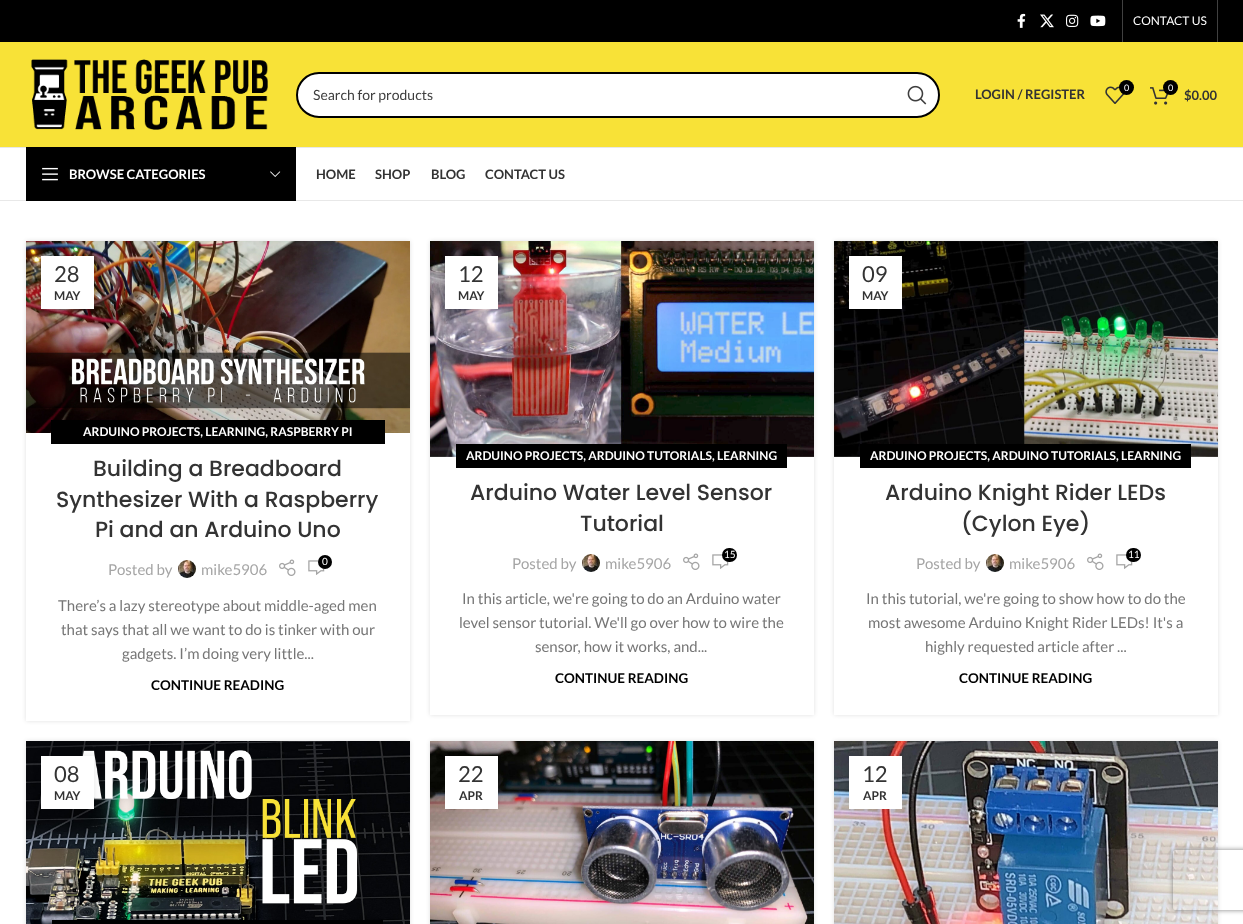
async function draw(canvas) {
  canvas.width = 1243;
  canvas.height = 924;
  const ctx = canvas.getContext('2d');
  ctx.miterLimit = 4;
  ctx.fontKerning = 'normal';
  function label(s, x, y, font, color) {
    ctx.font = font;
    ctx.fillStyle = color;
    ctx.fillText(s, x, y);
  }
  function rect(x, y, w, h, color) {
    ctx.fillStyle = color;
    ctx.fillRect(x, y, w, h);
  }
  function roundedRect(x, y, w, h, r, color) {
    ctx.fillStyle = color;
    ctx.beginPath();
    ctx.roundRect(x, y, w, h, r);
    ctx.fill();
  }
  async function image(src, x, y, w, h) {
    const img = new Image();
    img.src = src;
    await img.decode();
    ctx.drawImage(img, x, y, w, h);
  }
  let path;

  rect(0, 0, 1243, 924, '#fff');
  rect(0, 0, 1243, 42, '#000');
  await image('assets/img1.png', 1017, 13, 9, 15);
  await image('assets/img2.png', 1040, 14, 14, 14);
  await image('assets/img3.png', 1066, 14, 13, 13);
  await image('assets/img4.png', 1090, 15, 16, 12);
  rect(1122, 0, 1, 42, '#404040');
  label('CONTACT US', 1133, 25, '12px Lato', '#fff');
  rect(1217, 0, 1, 42, '#404040');
  rect(0, 42, 1243, 105, '#f8e237');
  rect(0, 147, 1243, 1, '#e8e8e8');
  await image('assets/img5.png', 31, 59, 237, 71);
  ctx.fillStyle = '#fff';
  ctx.beginPath();
  ctx.roundRect(297, 73, 642, 44, 22);
  ctx.fill();
  ctx.strokeStyle = '#000';
  ctx.lineWidth = 2;
  ctx.stroke();
  label('Search for products', 313, 100, '14px Lato', '#3e3e3e');
  await image('assets/img6.png', 907, 85, 20, 20);
  label('LOGIN / REGISTER', 975, 99, 'bold 13px Lato', '#333');
  await image('assets/img7.png', 1105, 86, 20, 18);
  ctx.fillStyle = '#000';
  ctx.beginPath();
  ctx.arc(1126.5, 87.5, 7.5, 0, 2 * Math.PI);
  ctx.fill();
  label('0', 1124, 91, '9px Lato', '#fff');
  await image('assets/img8.png', 1150, 87, 19, 18);
  ctx.fillStyle = '#000';
  ctx.beginPath();
  ctx.arc(1170.5, 87.5, 7.5, 0, 2 * Math.PI);
  ctx.fill();
  label('0', 1168, 91, '9px Lato', '#fff');
  label('$0.00', 1184, 100, 'bold 13px Lato', '#333');
  rect(0, 200, 1243, 1, '#e8e8e8');
  rect(26, 147, 270, 54, '#000');
  await image('assets/img9.png', 42, 167, 16, 14);
  label('BROWSE CATEGORIES', 69, 179, 'bold 13px Lato', '#fff');
  await image('assets/img10.png', 270, 171, 11, 6);
  label('HOME', 316, 179, 'bold 13px Lato', '#333');
  label('SHOP', 375, 179, 'bold 13px Lato', '#333');
  label('BLOG', 431, 179, 'bold 13px Lato', '#333');
  label('CONTACT US', 485, 179, 'bold 13px Lato', '#333');
  ctx.save();
  path = new Path2D('M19 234H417V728H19ZM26 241H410V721H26Z');
  ctx.clip(path, 'evenodd');
  ctx.fillStyle = '#0000001f';
  ctx.filter = 'blur(2px)';
  ctx.beginPath();
  ctx.rect(26, 241, 384, 480);
  ctx.fill();
  ctx.filter = 'none';
  ctx.restore();
  await image('assets/img11.png', 26, 241, 384, 192);
  ctx.fillStyle = '#0000001a';
  ctx.filter = 'blur(4.5px)';
  ctx.beginPath();
  ctx.rect(41, 256, 53, 53);
  ctx.fill();
  ctx.filter = 'none';
  rect(41, 256, 53, 53, '#fff');
  label('28', 54, 282, '22px Lato', '#333');
  label('MAY', 54, 300, 'bold 12px Lato', '#333');
  rect(51, 420, 334, 24, '#000');
  label('ARDUINO PROJECTS, LEARNING, RASPBERRY PI', 83, 436, 'bold 12px Lato', '#fff');
  label('Building a Breadboard', 93, 476, '500 22px Poppins', '#333');
  label('Synthesizer With a Raspberry', 56, 507, '500 22px Poppins', '#333');
  label('Pi and an Arduino Uno', 95, 537, '500 22px Poppins', '#333');
  label('Posted by', 108, 575, '15px Lato', '#a5a5a5');
  await image('assets/img12.png', 178, 560, 18, 18);
  label('mike5906', 201, 575, '15px Lato', '#a5a5a5');
  await image('assets/img13.png', 279, 559, 17, 17);
  await image('assets/img14.png', 308, 560, 17, 15);
  ctx.fillStyle = '#000';
  ctx.beginPath();
  ctx.arc(325, 562, 7, 0, 2 * Math.PI);
  ctx.fill();
  label('0', 322, 565, '10px Lato', '#fff');
  label('There’s a lazy stereotype about middle-aged men', 58, 611, '15px Lato', '#767676');
  label('that says that all we want to do is tinker with our', 61, 635, '15px Lato', '#767676');
  label('gadgets. I’m doing very little...', 122, 659, '15px Lato', '#767676');
  label('CONTINUE READING', 151, 690, 'bold 13.5px Lato', '#000');
  ctx.save();
  path = new Path2D('M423 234H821V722H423ZM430 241H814V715H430Z');
  ctx.clip(path, 'evenodd');
  ctx.fillStyle = '#0000001f';
  ctx.filter = 'blur(2px)';
  ctx.beginPath();
  ctx.rect(430, 241, 384, 474);
  ctx.fill();
  ctx.filter = 'none';
  ctx.restore();
  await image('assets/img15.png', 430, 241, 384, 216);
  ctx.fillStyle = '#0000001a';
  ctx.filter = 'blur(4.5px)';
  ctx.beginPath();
  ctx.rect(445, 256, 53, 53);
  ctx.fill();
  ctx.filter = 'none';
  rect(445, 256, 53, 53, '#fff');
  label('12', 458, 282, '22px Lato', '#333');
  label('MAY', 458, 300, 'bold 12px Lato', '#333');
  rect(456, 444, 331, 24, '#000');
  label('ARDUINO PROJECTS, ARDUINO TUTORIALS, LEARNING', 466, 460, 'bold 12px Lato', '#fff');
  label('Arduino Water Level Sensor', 470, 500, '500 22px Poppins', '#333');
  label('Tutorial', 580, 531, '500 22px Poppins', '#333');
  label('Posted by', 512, 569, '15px Lato', '#a5a5a5');
  await image('assets/img12.png', 582, 554, 18, 18);
  label('mike5906', 605, 569, '15px Lato', '#a5a5a5');
  await image('assets/img13.png', 683, 553, 17, 17);
  await image('assets/img14.png', 712, 554, 17, 15);
  roundedRect(722, 548, 15, 14, 7, '#000');
  label('15', 724, 558, '10px Lato', '#fff');
  label('In this article, we\'re going to do an Arduino water', 462, 604, '15px Lato', '#767676');
  label('level sensor tutorial. We\'ll go over how to wire the', 459, 628, '15px Lato', '#767676');
  label('sensor, how it works, and...', 535, 652, '15px Lato', '#767676');
  label('CONTINUE READING', 555, 683, 'bold 13.5px Lato', '#000');
  ctx.save();
  path = new Path2D('M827 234H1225V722H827ZM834 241H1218V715H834Z');
  ctx.clip(path, 'evenodd');
  ctx.fillStyle = '#0000001f';
  ctx.filter = 'blur(2px)';
  ctx.beginPath();
  ctx.rect(834, 241, 384, 474);
  ctx.fill();
  ctx.filter = 'none';
  ctx.restore();
  await image('assets/img16.png', 834, 241, 384, 216);
  ctx.fillStyle = '#0000001a';
  ctx.filter = 'blur(4.5px)';
  ctx.beginPath();
  ctx.rect(849, 256, 53, 53);
  ctx.fill();
  ctx.filter = 'none';
  rect(849, 256, 53, 53, '#fff');
  label('09', 862, 282, '22px Lato', '#333');
  label('MAY', 862, 300, 'bold 12px Lato', '#333');
  rect(860, 444, 331, 24, '#000');
  label('ARDUINO PROJECTS, ARDUINO TUTORIALS, LEARNING', 870, 460, 'bold 12px Lato', '#fff');
  label('Arduino Knight Rider LEDs', 885, 500, '500 22px Poppins', '#333');
  label('(Cylon Eye)', 961, 531, '500 22px Poppins', '#333');
  label('Posted by', 916, 569, '15px Lato', '#a5a5a5');
  await image('assets/img12.png', 986, 554, 18, 18);
  label('mike5906', 1009, 569, '15px Lato', '#a5a5a5');
  await image('assets/img13.png', 1087, 553, 17, 17);
  await image('assets/img14.png', 1116, 554, 17, 15);
  roundedRect(1126, 548, 15, 14, 7, '#000');
  label('11', 1128, 558, '10px Lato', '#fff');
  label('In this tutorial, we\'re going to show how to do the', 866, 604, '15px Lato', '#767676');
  label('most awesome Arduino Knight Rider LEDs! It\'s a', 868, 628, '15px Lato', '#767676');
  label('highly requested article after ...', 925, 652, '15px Lato', '#767676');
  label('CONTINUE READING', 959, 683, 'bold 13.5px Lato', '#000');
  ctx.fillStyle = '#0000001f';
  ctx.filter = 'blur(2px)';
  ctx.beginPath();
  ctx.rect(26, 741, 384, 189);
  ctx.fill();
  ctx.filter = 'none';
  await image('assets/img17.png', 26, 741, 384, 183);
  ctx.fillStyle = '#0000001a';
  ctx.filter = 'blur(4.5px)';
  ctx.beginPath();
  ctx.rect(41, 756, 53, 53);
  ctx.fill();
  ctx.filter = 'none';
  rect(41, 756, 53, 53, '#fff');
  label('08', 54, 782, '22px Lato', '#333');
  label('MAY', 54, 800, 'bold 12px Lato', '#333');
  rect(52, 920, 331, 4, '#000');
  ctx.fillStyle = '#0000001f';
  ctx.filter = 'blur(2px)';
  ctx.beginPath();
  ctx.rect(430, 741, 384, 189);
  ctx.fill();
  ctx.filter = 'none';
  await image('assets/img18.png', 430, 741, 384, 183);
  ctx.fillStyle = '#0000001a';
  ctx.filter = 'blur(4.5px)';
  ctx.beginPath();
  ctx.rect(445, 756, 53, 53);
  ctx.fill();
  ctx.filter = 'none';
  rect(445, 756, 53, 53, '#fff');
  label('22', 458, 782, '22px Lato', '#333');
  label('APR', 459, 800, 'bold 12px Lato', '#333');
  ctx.fillStyle = '#0000001f';
  ctx.filter = 'blur(2px)';
  ctx.beginPath();
  ctx.rect(834, 741, 384, 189);
  ctx.fill();
  ctx.filter = 'none';
  await image('assets/img19.png', 834, 741, 384, 183);
  ctx.fillStyle = '#0000001a';
  ctx.filter = 'blur(4.5px)';
  ctx.beginPath();
  ctx.rect(849, 756, 53, 53);
  ctx.fill();
  ctx.filter = 'none';
  rect(849, 756, 53, 53, '#fff');
  label('12', 862, 782, '22px Lato', '#333');
  label('APR', 863, 800, 'bold 12px Lato', '#333');
  ctx.save();
  path = new Path2D('M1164 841H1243V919H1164ZM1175 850H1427C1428 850 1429 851 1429 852V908C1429 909 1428 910 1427 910H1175C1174 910 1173 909 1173 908V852C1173 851 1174 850 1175 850Z');
  ctx.clip(path, 'evenodd');
  ctx.fillStyle = '#808080';
  ctx.filter = 'blur(2.5px)';
  ctx.beginPath();
  ctx.roundRect(1173, 850, 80, 60, 2);
  ctx.fill();
  ctx.filter = 'none';
  ctx.restore();
}

draw(document.querySelector('canvas'));
